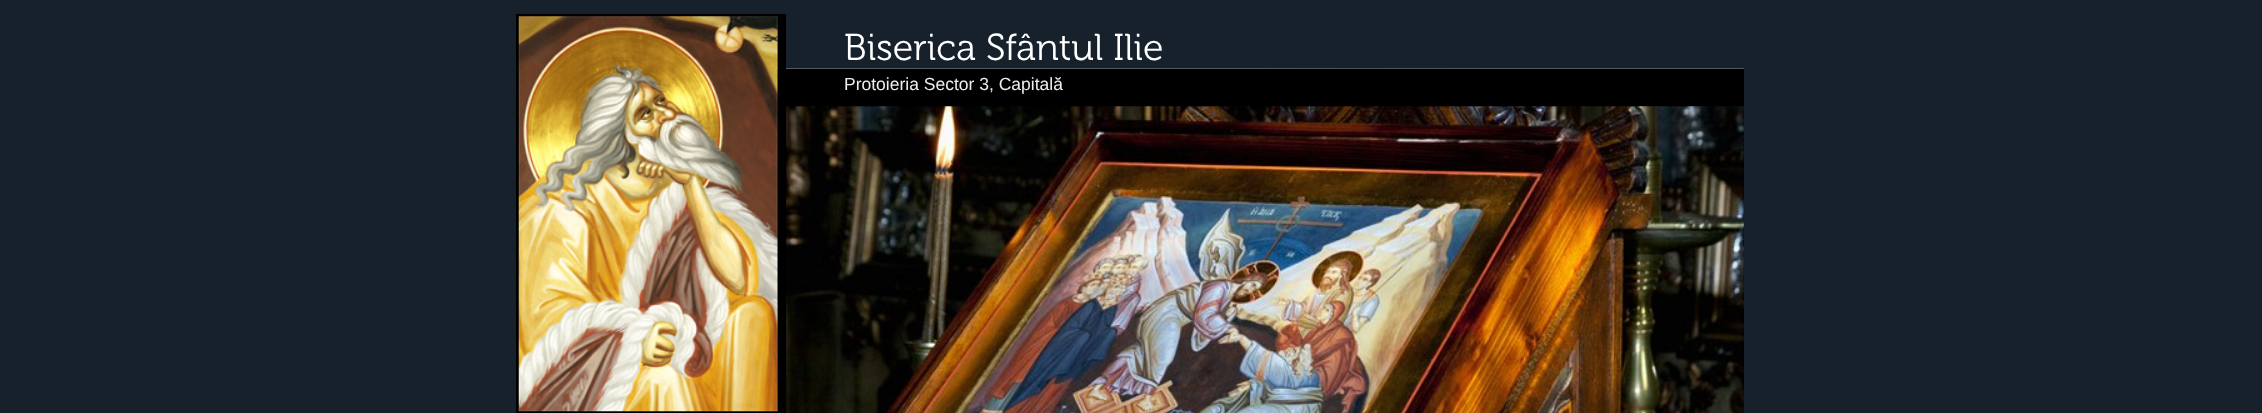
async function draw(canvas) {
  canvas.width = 2262;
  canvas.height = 413;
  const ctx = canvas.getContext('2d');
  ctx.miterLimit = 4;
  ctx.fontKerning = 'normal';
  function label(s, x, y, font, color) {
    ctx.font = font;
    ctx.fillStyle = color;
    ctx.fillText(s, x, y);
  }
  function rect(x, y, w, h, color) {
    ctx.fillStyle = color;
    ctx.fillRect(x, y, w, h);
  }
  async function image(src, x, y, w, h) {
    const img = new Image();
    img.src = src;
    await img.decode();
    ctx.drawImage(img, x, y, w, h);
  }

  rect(0, 0, 2262, 413, '#16212c');
  await image('assets/img1.png', 777, 68, 967, 1);
  rect(777, 69, 967, 344, '#000');
  rect(516, 14, 270, 3, '#000');
  await image('assets/img3.png', 777, 106, 967, 307);
  rect(778, 14, 8, 399, '#000');
  rect(516, 411, 270, 2, '#000');
  rect(516, 14, 3, 399, '#000');
  await image('assets/img2.png', 518, 16, 260, 396);
  label('Biserica Sfântul Ilie', 844, 60, '300 37.5px "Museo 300"', '#fff');
  label('Protoieria Sector 3, Capitală', 844, 90, '17.5px Liberation Sans', '#eee');
}

draw(document.querySelector('canvas'));
